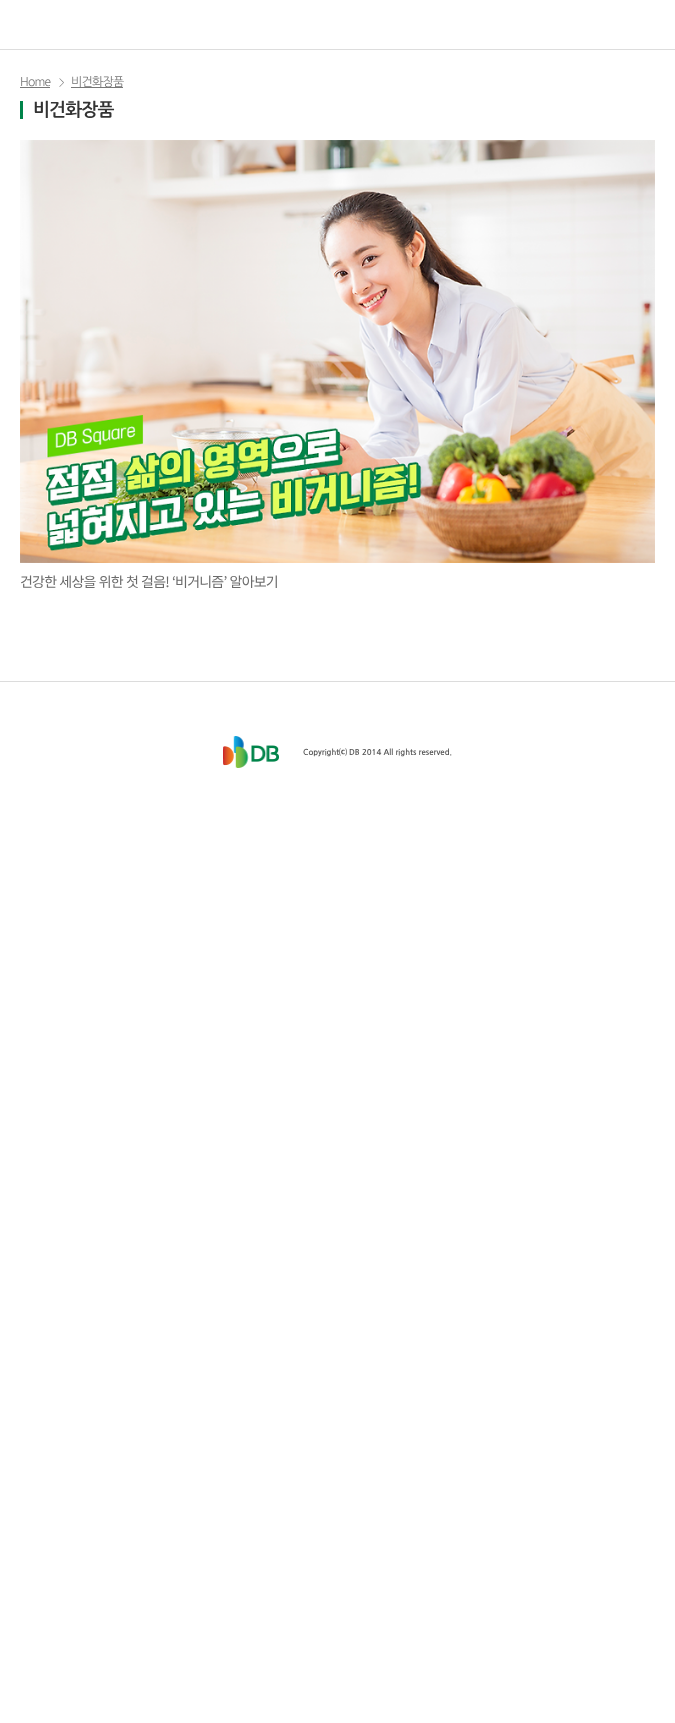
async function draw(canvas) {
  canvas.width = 675;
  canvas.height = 1723;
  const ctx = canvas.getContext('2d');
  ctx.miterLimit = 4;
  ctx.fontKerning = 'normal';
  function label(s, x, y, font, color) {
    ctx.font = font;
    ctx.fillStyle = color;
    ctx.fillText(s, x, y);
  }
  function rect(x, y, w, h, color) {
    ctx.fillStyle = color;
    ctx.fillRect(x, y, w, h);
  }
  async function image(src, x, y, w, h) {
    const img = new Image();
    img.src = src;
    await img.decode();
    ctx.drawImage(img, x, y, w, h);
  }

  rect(0, 0, 675, 1723, '#fff');
  rect(0, 49, 675, 1, '#ddd');
  ctx.letterSpacing = '-0.8px';
  label('Home', 20, 86, '12px NanumGothic', '#777');
  rect(20, 87, 30, 1, '#777');
  label('>', 59, 86, '10px NanumGothic', '#7e7e7e');
  rect(71, 87, 52, 1, '#777');
  label('비건화장품', 71, 86, '12px NanumGothic', '#777');
  rect(20, 101, 3, 18, '#00844a');
  label('비건화장품', 33, 116, 'bold 18px NanumGothic', '#333');
  await image('assets/img1.png', 20, 140, 635, 423);
  ctx.wordSpacing = '0.75px';
  label('건강한 세상을 위한 첫 걸음! ‘비거니즘’ 알아보기', 20, 587, '14px Noto Sans KR', '#6b6b6b');
  rect(0, 681, 675, 1, '#dcdcdc');
  await image('assets/img2.png', 223, 736, 56, 32);
  ctx.letterSpacing = '0px';
  ctx.wordSpacing = '0px';
  label('Copyright', 303, 755, 'bold 8px NanumGothic', '#565656');
  label('⒞', 339, 755, 'bold 8px Noto Sans KR', '#565656');
  label('DB 2014 All rights reserved.', 349, 755, 'bold 8px NanumGothic', '#565656');
}

draw(document.querySelector('canvas'));
